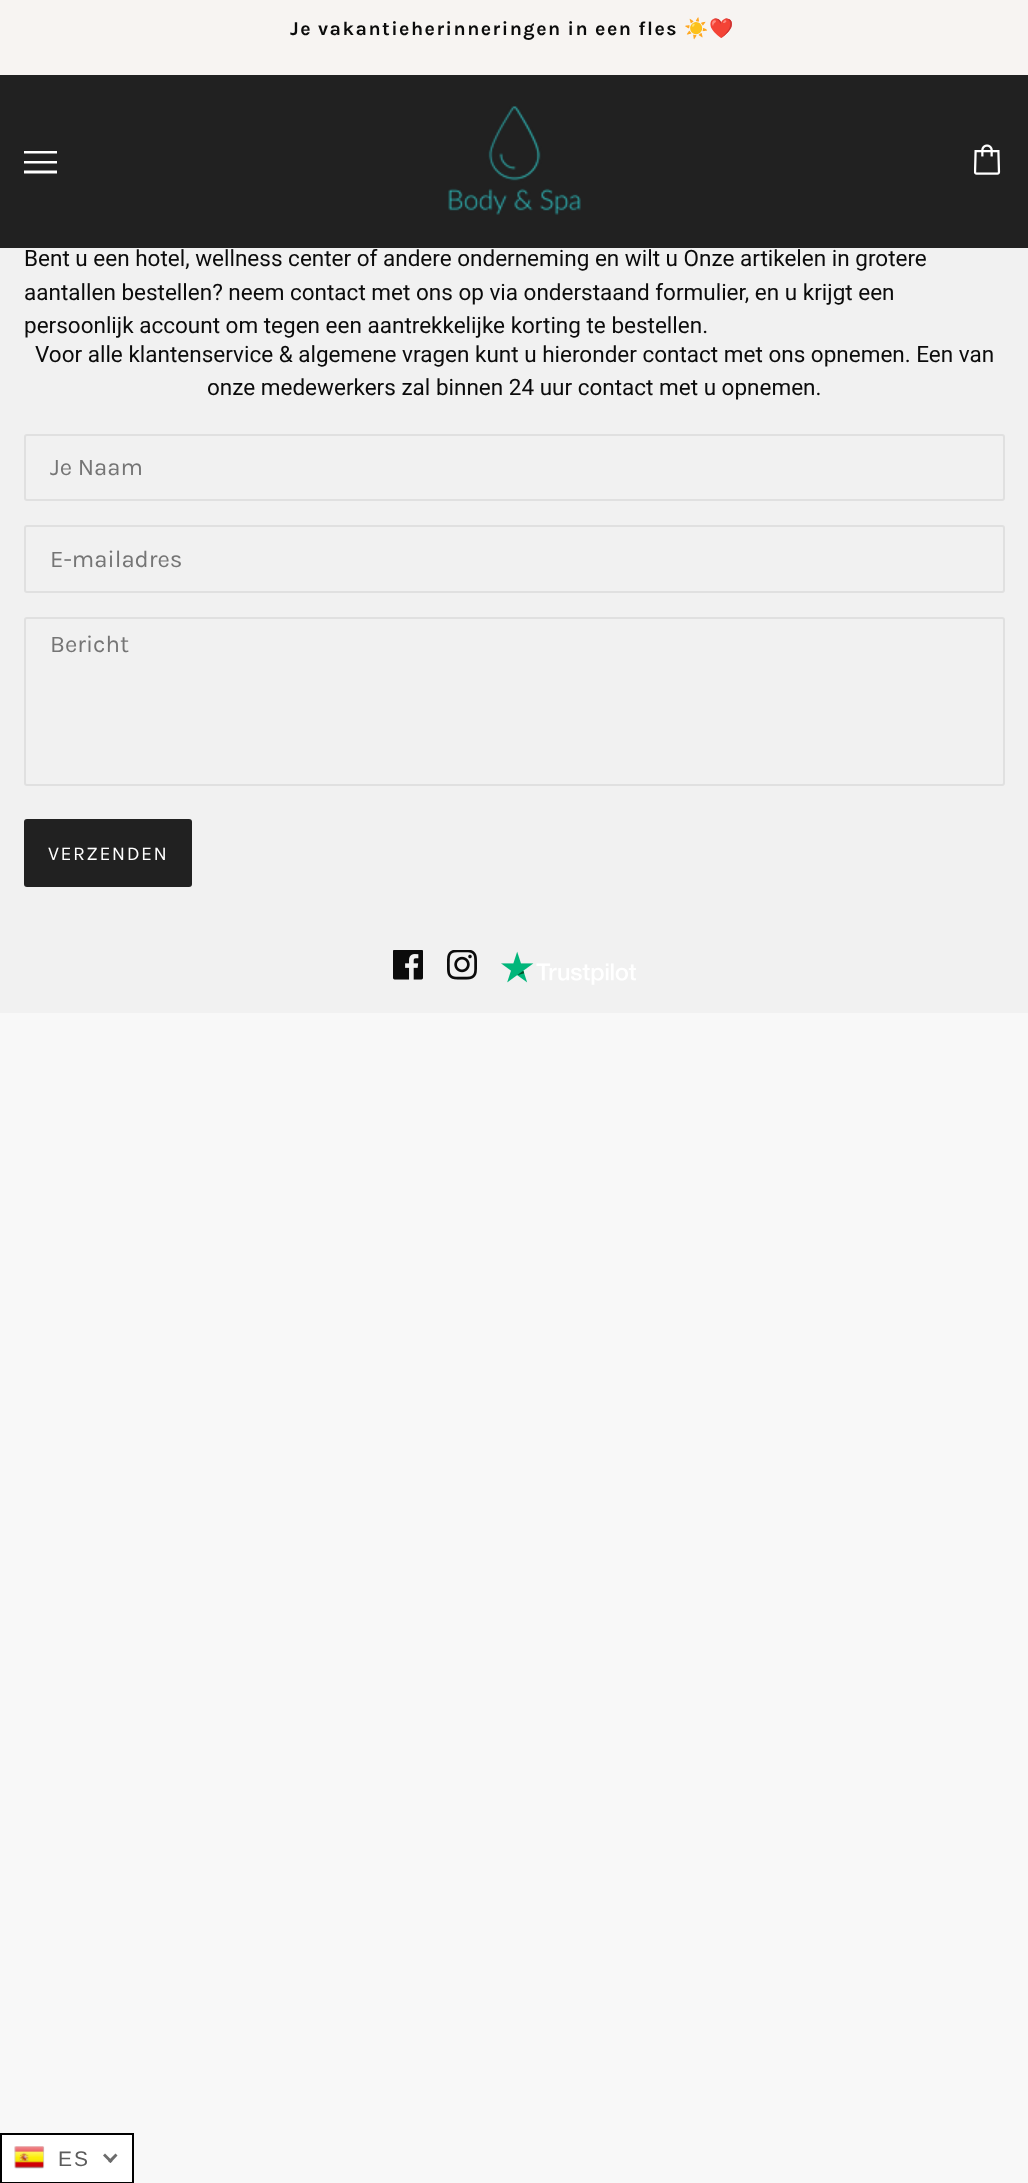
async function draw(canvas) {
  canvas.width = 1028;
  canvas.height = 2183;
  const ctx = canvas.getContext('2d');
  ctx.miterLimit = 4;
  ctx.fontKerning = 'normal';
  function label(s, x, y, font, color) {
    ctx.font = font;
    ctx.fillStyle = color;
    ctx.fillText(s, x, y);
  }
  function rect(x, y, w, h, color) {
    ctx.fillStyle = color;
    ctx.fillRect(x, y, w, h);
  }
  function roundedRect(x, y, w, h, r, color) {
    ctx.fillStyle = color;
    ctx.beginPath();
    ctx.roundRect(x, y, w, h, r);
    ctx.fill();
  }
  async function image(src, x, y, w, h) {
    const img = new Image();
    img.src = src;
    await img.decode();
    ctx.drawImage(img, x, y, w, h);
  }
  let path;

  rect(0, 0, 1028, 2183, '#f8f8f8');
  rect(0, 0, 1028, 75, '#f7f4f2');
  ctx.letterSpacing = '1.5px';
  ctx.wordSpacing = '-0.5px';
  label('Je vakantieherinneringen in een fles', 290, 35, 'bold 19.5px Karla', '#0b0b0b');
  ctx.wordSpacing = '0px';
  label('☀️❤️', 684, 35, 'bold 19.5px Noto Color Emoji', '#0b0b0b');
  rect(0, 75, 1028, 173, '#212121');
  ctx.fillStyle = '#fff';
  path = new Path2D('M24 153.5V151H57V153.5ZM24 163.5V161H57V163.5ZM24 173.5V170.5H57V173.5Z');
  ctx.fill(path);
  await image('assets/img1.png', 448, 106, 133, 109);
  await image('assets/img2.png', 974, 144, 27, 31);
  rect(0, 248, 1028, 765, '#f1f1f1');
  ctx.letterSpacing = '0px';
  label('Bent u een hotel, wellness center of andere onderneming en wilt u Onze artikelen in grotere', 24, 266, '22.5px Roboto', '#0b0b0b');
  label('aantallen bestellen? neem contact met ons op via onderstaand formulier, en u krijgt een', 24, 300, '22.5px Roboto', '#0b0b0b');
  label('persoonlijk account om tegen een aantrekkelijke korting te bestellen.', 24, 333, '22.5px Roboto', '#0b0b0b');
  label('Voor alle klantenservice & algemene vragen kunt u hieronder contact met ons opnemen. Een van', 35, 362, '22.5px Roboto', '#0b0b0b');
  label('onze medewerkers zal binnen 24 uur contact met u opnemen.', 207, 395, '22.5px Roboto', '#0b0b0b');
  ctx.beginPath();
  ctx.roundRect(25, 435, 979, 65, 2);
  ctx.strokeStyle = '#e0e0e0';
  ctx.lineWidth = 2;
  ctx.stroke();
  ctx.save();
  ctx.beginPath();
  ctx.rect(50, 453, 930, 29);
  ctx.clip();
  label('Je Naam', 50, 475, '24px Karla', '#757575');
  ctx.restore();
  ctx.beginPath();
  ctx.roundRect(25, 526, 979, 66, 2);
  ctx.stroke();
  label('E-mailadres', 50, 567, '24px Karla', '#757575');
  ctx.beginPath();
  ctx.roundRect(25, 618, 979, 167, 2);
  ctx.stroke();
  label('Bericht', 50, 652, '24px Karla', '#757575');
  roundedRect(24, 819, 168, 68, 3, '#212121');
  ctx.letterSpacing = '1.5px';
  label('VERZENDEN', 48, 860, '19.5px Karla', '#fff');
  await image('assets/img3.png', 393, 950, 30, 30);
  await image('assets/img4.png', 447, 950, 30, 30);
  await image('assets/img5.png', 501, 951, 135, 34);
  ctx.beginPath();
  ctx.rect(1, 2134, 132, 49);
  ctx.fill();
  ctx.strokeStyle = '#000';
  ctx.stroke();
  await image('assets/img6.png', 14, 2146, 31, 23);
  ctx.letterSpacing = '2px';
  label('ES', 58, 2166, '21px Liberation Sans', '#5c5c5c');
  ctx.fillStyle = '#6c6c6c';
  path = new Path2D('M115.5 2153.5L117.5 2155.5L110.5 2163L108 2161Z');
  ctx.fill(path);
  path = new Path2D('M105 2153.5L112.5 2161L110.5 2163L103 2155.5Z');
  ctx.fill(path);
}

draw(document.querySelector('canvas'));
